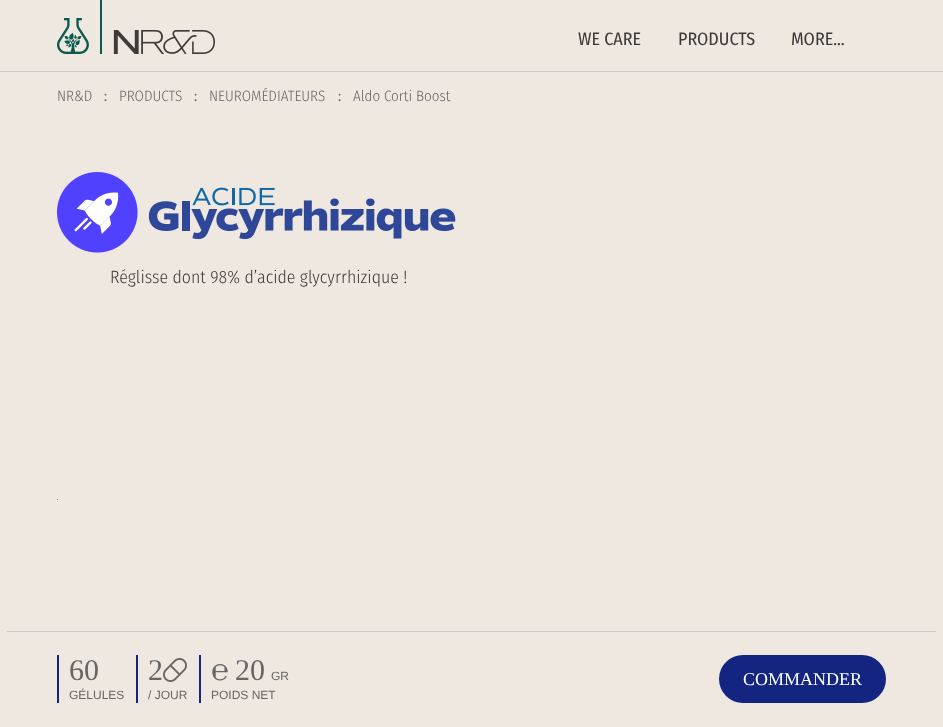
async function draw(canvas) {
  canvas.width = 943;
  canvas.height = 727;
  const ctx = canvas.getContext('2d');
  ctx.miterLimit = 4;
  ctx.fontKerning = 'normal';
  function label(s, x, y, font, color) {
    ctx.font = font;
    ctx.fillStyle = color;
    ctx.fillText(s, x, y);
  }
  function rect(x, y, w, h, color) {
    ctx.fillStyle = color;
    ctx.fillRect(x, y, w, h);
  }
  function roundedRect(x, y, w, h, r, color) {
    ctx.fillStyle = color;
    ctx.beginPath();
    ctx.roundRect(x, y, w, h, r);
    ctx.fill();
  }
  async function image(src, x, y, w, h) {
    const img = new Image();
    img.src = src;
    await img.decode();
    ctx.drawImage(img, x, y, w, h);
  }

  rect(0, 0, 943, 727, '#efe8e1');
  await image('assets/img1.png', 57, 0, 158, 54);
  label('WE CARE', 578, 45, '18px Fira Sans Condensed', '#3c3b39');
  label('PRODUCTS', 678, 45, '18px Fira Sans Condensed', '#3c3b39');
  label('MORE...', 791, 45, '18px Fira Sans Condensed', '#3c3b39');
  rect(0, 71, 943, 1, '#ccc');
  label('NR&D', 57, 101, '300 15px Fira Sans Condensed', '#666');
  label(':', 104, 101, '15px Fira Sans Condensed', '#666');
  label('PRODUCTS', 119, 101, '300 15px Fira Sans Condensed', '#666');
  label(':', 194, 101, '15px Fira Sans Condensed', '#666');
  label('NEUROMÉDIATEURS', 209, 101, '300 15px Fira Sans Condensed', '#666');
  label(':', 338, 101, '15px Fira Sans Condensed', '#666');
  label('Aldo Corti Boost', 353, 101, '300 15px Fira Sans Condensed', '#666');
  await image('assets/img2.png', 57, 172, 399, 81);
  label('Réglisse dont 98% d’acide glycyrrhizique !', 110, 283, '300 17.75px Fira Sans Condensed', '#3c3b39');
  rect(57, 499, 1, 1, '#b45ad3');
  rect(7, 631, 929, 1, '#ccc');
  rect(57, 655, 2, 48, '#132580');
  label('60', 69, 680, '30px Liberation Serif', '#666');
  label('GÉLULES', 69, 699, '12px Liberation Sans', '#666');
  rect(136, 655, 2, 48, '#132580');
  label('2', 148, 680, '30px Liberation Serif', '#666');
  await image('assets/img3.png', 163, 658, 24, 24);
  label('/ JOUR', 148, 699, '12px Liberation Sans', '#666');
  rect(199, 655, 2, 48, '#132580');
  label('℮', 211, 680, '30px Liberation Serif', '#666');
  label('20', 235, 680, '30px Liberation Serif', '#666');
  label('GR', 271, 680, '12px Liberation Sans', '#666');
  label('POIDS NET', 211, 699, '12px Liberation Sans', '#666');
  roundedRect(719, 655, 167, 48, 24, '#132580');
  label('COMMANDER', 743, 685, '18px Liberation Serif', '#fff');
}

draw(document.querySelector('canvas'));
